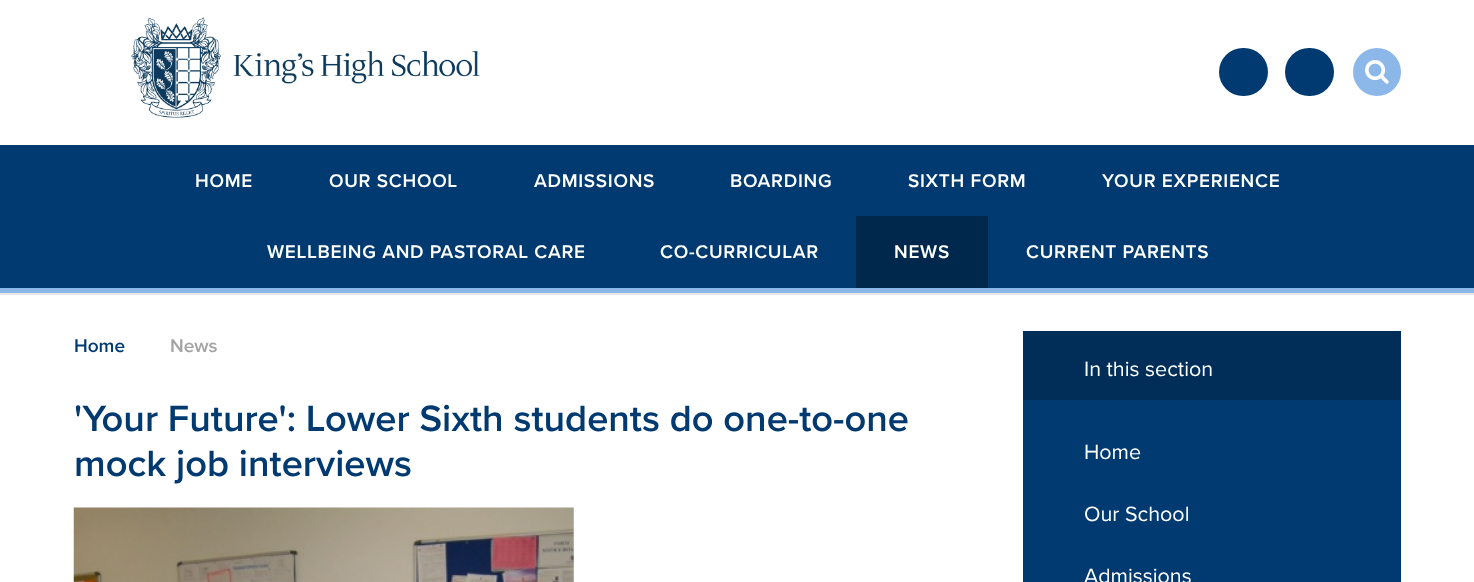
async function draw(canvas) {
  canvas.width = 1474;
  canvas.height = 582;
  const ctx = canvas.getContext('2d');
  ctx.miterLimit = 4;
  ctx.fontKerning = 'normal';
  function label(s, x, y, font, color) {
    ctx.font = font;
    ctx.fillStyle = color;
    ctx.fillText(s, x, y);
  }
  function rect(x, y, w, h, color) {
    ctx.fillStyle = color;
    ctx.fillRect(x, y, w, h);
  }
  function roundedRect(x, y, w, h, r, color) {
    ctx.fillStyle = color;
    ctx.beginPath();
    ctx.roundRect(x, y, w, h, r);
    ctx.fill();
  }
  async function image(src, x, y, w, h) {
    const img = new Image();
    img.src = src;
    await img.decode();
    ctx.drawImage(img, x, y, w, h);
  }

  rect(0, 0, 1474, 582, '#fff');
  await image('assets/img1.png', 131, 17, 349, 101);
  rect(0, 293, 1474, 2, '#e6e6e6');
  rect(0, 145, 1474, 143, '#003a70');
  rect(0, 288, 1474, 5, '#8bb8e8');
  roundedRect(1219, 48, 49, 48, 24, '#003a70');
  roundedRect(1285, 48, 49, 48, 24, '#003a70');
  ctx.fillStyle = '#8bb8e8';
  ctx.beginPath();
  ctx.arc(1377, 72, 24, 0, 2 * Math.PI);
  ctx.fill();
  await image('assets/img2.png', 1365, 60, 24, 24);
  ctx.letterSpacing = '0.7px';
  label('HOME', 195, 187, '600 19px Proxima Nova', '#fff');
  label('OUR SCHOOL', 329, 187, '600 19px Proxima Nova', '#fff');
  label('ADMISSIONS', 534, 187, '600 19px Proxima Nova', '#fff');
  label('BOARDING', 730, 187, '600 19px Proxima Nova', '#fff');
  label('SIXTH FORM', 908, 187, '600 19px Proxima Nova', '#fff');
  label('YOUR EXPERIENCE', 1102, 187, '600 19px Proxima Nova', '#fff');
  label('WELLBEING AND PASTORAL CARE', 267, 258, '600 19px Proxima Nova', '#fff');
  label('CO-CURRICULAR', 660, 258, '600 19px Proxima Nova', '#fff');
  rect(856, 216, 132, 72, '#00284c');
  label('NEWS', 894, 258, '600 19px Proxima Nova', '#fff');
  label('CURRENT PARENTS', 1026, 258, '600 19px Proxima Nova', '#fff');
  ctx.letterSpacing = '0px';
  label('Home', 74, 352, '600 19px Proxima Nova', '#003a70');
  label('News', 170, 352, '600 19px Proxima Nova', '#a4a4a4');
  label('\'Your Future\': Lower Sixth students do one-to-one', 74, 431, '600 38px Proxima Nova', '#003a70');
  label('mock job interviews', 74, 476, '600 38px Proxima Nova', '#003a70');
  await image('assets/img3.png', 73, 507, 501, 75);
  rect(1023, 400, 378, 182, '#003a70');
  rect(1023, 331, 378, 69, '#002e59');
  label('In this section', 1084, 376, '21.5px Proxima Nova', '#fff');
  label('Home', 1084, 459, '21.5px Proxima Nova', '#fff');
  label('Our School', 1084, 521, '21.5px Proxima Nova', '#fff');
  label('Admissions', 1084, 583, '21.5px Proxima Nova', '#fff');
}

draw(document.querySelector('canvas'));
